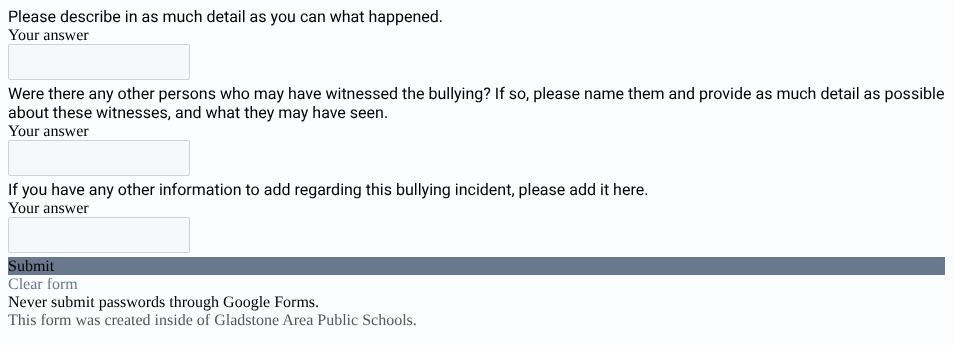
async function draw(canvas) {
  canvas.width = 953;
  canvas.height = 345;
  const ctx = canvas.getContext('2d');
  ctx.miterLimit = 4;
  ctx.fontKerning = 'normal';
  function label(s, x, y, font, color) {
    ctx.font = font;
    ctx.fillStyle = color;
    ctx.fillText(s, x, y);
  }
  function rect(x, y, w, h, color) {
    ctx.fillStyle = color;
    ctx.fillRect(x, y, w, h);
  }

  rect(0, 0, 953, 345, '#fafcfd');
  label('Please describe in as much detail as you can what happened.', 8, 22, '16px Roboto', '#000');
  label('Your answer', 8, 40, '16px Liberation Serif', '#000');
  ctx.fillStyle = '#f7f8f9';
  ctx.beginPath();
  ctx.roundRect(8.5, 44.5, 181, 35, 1.5);
  ctx.fill();
  ctx.strokeStyle = '#d0d1d2';
  ctx.stroke();
  label('Were there any other persons who may have witnessed the bullying? If so, please name them and provide as much detail as possible', 8, 99, '16px Roboto', '#000');
  label('about these witnesses, and what they may have seen.', 8, 118, '16px Roboto', '#000');
  label('Your answer', 8, 136, '16px Liberation Serif', '#000');
  ctx.fillStyle = '#f7f8f9';
  ctx.beginPath();
  ctx.roundRect(8.5, 140.5, 181, 35, 1.5);
  ctx.fill();
  ctx.stroke();
  label('If you have any other information to add regarding this bullying incident, please add it here.', 8, 195, '16px Roboto', '#000');
  label('Your answer', 8, 213, '16px Liberation Serif', '#000');
  ctx.fillStyle = '#f7f8f9';
  ctx.beginPath();
  ctx.roundRect(8.5, 217.5, 181, 35, 1.5);
  ctx.fill();
  ctx.stroke();
  rect(8, 257, 937, 18, '#69788c');
  label('Submit', 8, 271, '16px Liberation Serif', '#000');
  label('Clear form', 8, 289, '16px Liberation Serif', '#69788c');
  label('Never submit passwords through Google Forms.', 8, 307, '16px Liberation Serif', '#000');
  label('This form was created inside of Gladstone Area Public Schools.', 8, 325, '16px Liberation Serif', '#555656');
}

draw(document.querySelector('canvas'));
